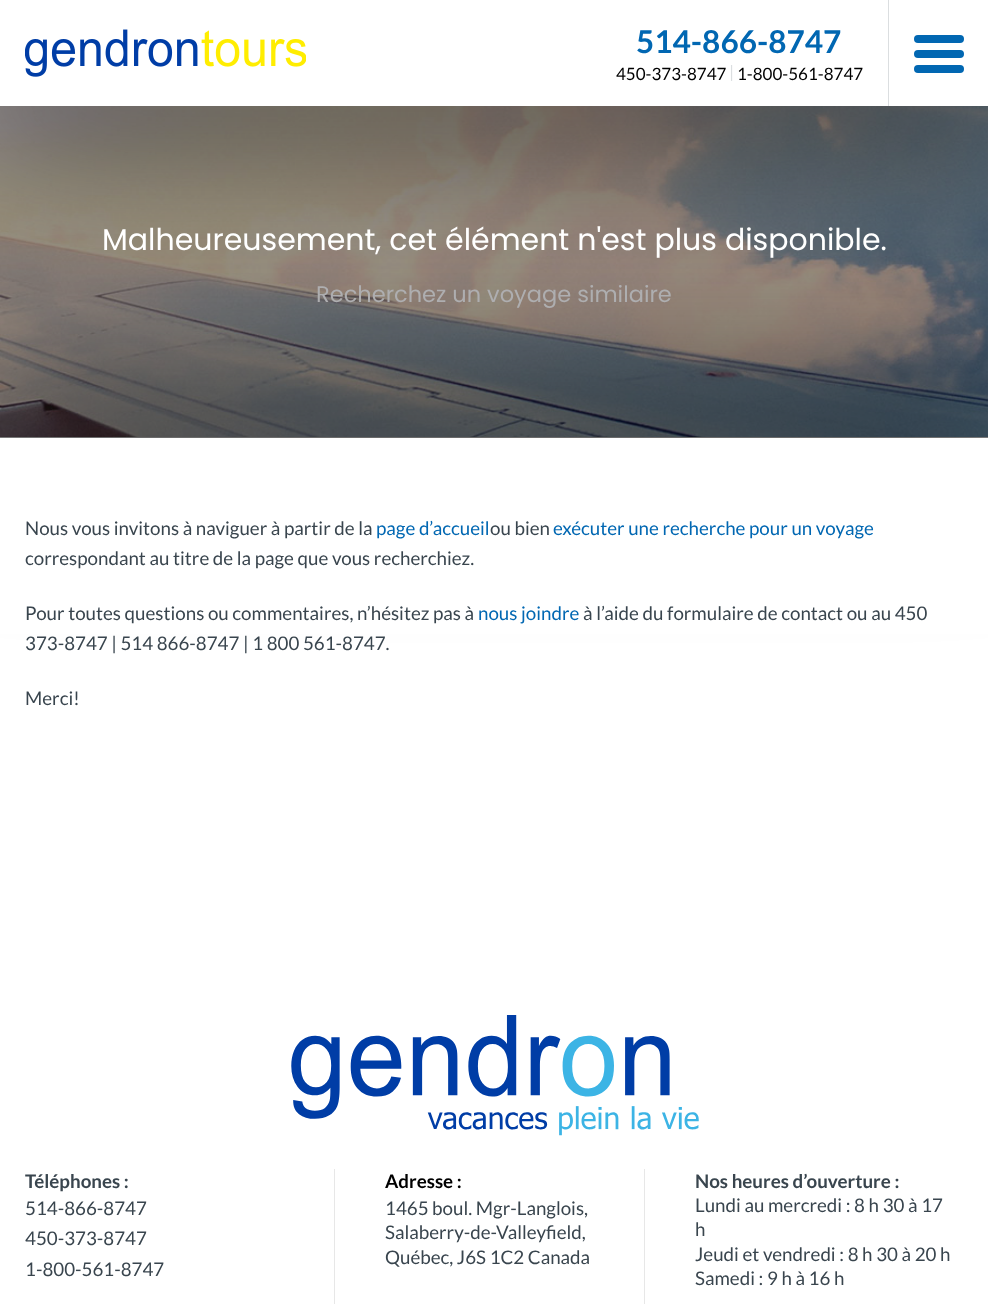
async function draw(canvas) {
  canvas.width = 988;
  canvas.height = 1304;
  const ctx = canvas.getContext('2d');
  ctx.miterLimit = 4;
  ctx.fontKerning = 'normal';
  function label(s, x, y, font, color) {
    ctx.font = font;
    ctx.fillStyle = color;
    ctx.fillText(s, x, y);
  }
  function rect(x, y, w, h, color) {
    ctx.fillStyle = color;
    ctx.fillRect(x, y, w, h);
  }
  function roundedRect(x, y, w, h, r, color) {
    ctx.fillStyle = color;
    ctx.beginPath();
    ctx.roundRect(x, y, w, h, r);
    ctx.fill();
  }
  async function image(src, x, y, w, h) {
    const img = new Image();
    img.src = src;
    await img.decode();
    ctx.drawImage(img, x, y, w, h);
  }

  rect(0, 0, 988, 1304, '#fff');
  rect(0, 106, 988, 332, '#939393');
  await image('assets/img2.png', 0, 106, 988, 331);
  ctx.fillStyle = '#000';
  ctx.filter = 'blur(75px)';
  ctx.beginPath();
  ctx.rect(-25, 68, 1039, 51);
  ctx.fill();
  ctx.filter = 'none';
  rect(0, 0, 988, 106, '#fff');
  await image('assets/img1.png', 25, 29, 281, 48);
  label('514-866-8747', 636, 53, 'bold 31.5px Lato', '#0167b2');
  label('450-373-8747', 616, 80, '17px Lato', '#000');
  label('|', 729, 78, '17px Lato', '#dbdee0');
  label('1-800-561-8747', 737, 80, '17px Lato', '#000');
  rect(888, 0, 1, 106, '#dbdee0');
  roundedRect(914, 50, 50, 8, 4, '#0167b2');
  roundedRect(914, 35, 50, 8, 4, '#0167b2');
  roundedRect(914, 65, 50, 8, 4, '#0167b2');
  ctx.fillStyle = '#000';
  ctx.filter = 'blur(75px)';
  ctx.beginPath();
  ctx.rect(-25, 413, 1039, 51);
  ctx.fill();
  ctx.filter = 'none';
  label('Malheureusement, cet élément n\'est plus disponible.', 102, 250, '30px Poppins', '#fff');
  label('Recherchez un voyage similaire', 316, 302, '22.5px Poppins', '#aeaeb0');
  rect(0, 438, 988, 196, '#fff');
  label('Nous vous invitons à naviguer à partir de la', 25, 535, '18.75px Lato', '#39454e');
  label('page d’accueil', 376, 535, '18.75px Lato', '#0167b2');
  label('ou bien', 490, 535, '18.75px Lato', '#39454e');
  label('exécuter une recherche pour un voyage', 553, 535, '18.75px Lato', '#0167b2');
  label('correspondant au titre de la page que vous recherchiez.', 25, 565, '18.75px Lato', '#39454e');
  label('Pour toutes questions ou commentaires, n’hésitez pas à', 25, 620, '18.75px Lato', '#39454e');
  label('nous joindre', 478, 620, '18.75px Lato', '#0167b2');
  label('à l’aide du formulaire de contact ou au 450', 583, 620, '18.75px Lato', '#39454e');
  label('373-8747 | 514 866-8747 | 1 800 561-8747.', 25, 650, '18.75px Lato', '#39454e');
  label('Merci!', 25, 705, '18.75px Lato', '#39454e');
  await image('assets/img3.png', 291, 1015, 408, 121);
  rect(334, 1169, 1, 135, '#e7e7e7');
  label('Téléphones :', 25, 1188, 'bold 18.75px Lato', '#39454e');
  label('514-866-8747', 25, 1215, '18.75px Lato', '#39454e');
  label('450-373-8747', 25, 1245, '18.75px Lato', '#39454e');
  label('1-800-561-8747', 25, 1276, '18.75px Lato', '#39454e');
  rect(644, 1169, 1, 135, '#e7e7e7');
  label('Adresse :', 385, 1188, 'bold 18.75px Lato', '#000');
  label('1465 boul. Mgr-Langlois,', 385, 1215, '18.75px Lato', '#39454e');
  label('Salaberry-de-Valleyfield,', 385, 1239, '18.75px Lato', '#39454e');
  label('Québec, J6S 1C2 Canada', 385, 1264, '18.75px Lato', '#39454e');
  label('Nos heures d’ouverture :', 695, 1188, 'bold 18.75px Lato', '#39454e');
  label('Lundi au mercredi : 8 h 30 à 17', 695, 1212, '18.75px Lato', '#39454e');
  label('h', 695, 1236, '18.75px Lato', '#39454e');
  label('Jeudi et vendredi : 8 h 30 à 20 h', 695, 1261, '18.75px Lato', '#39454e');
  label('Samedi : 9 h à 16 h', 695, 1285, '18.75px Lato', '#39454e');
}

draw(document.querySelector('canvas'));
